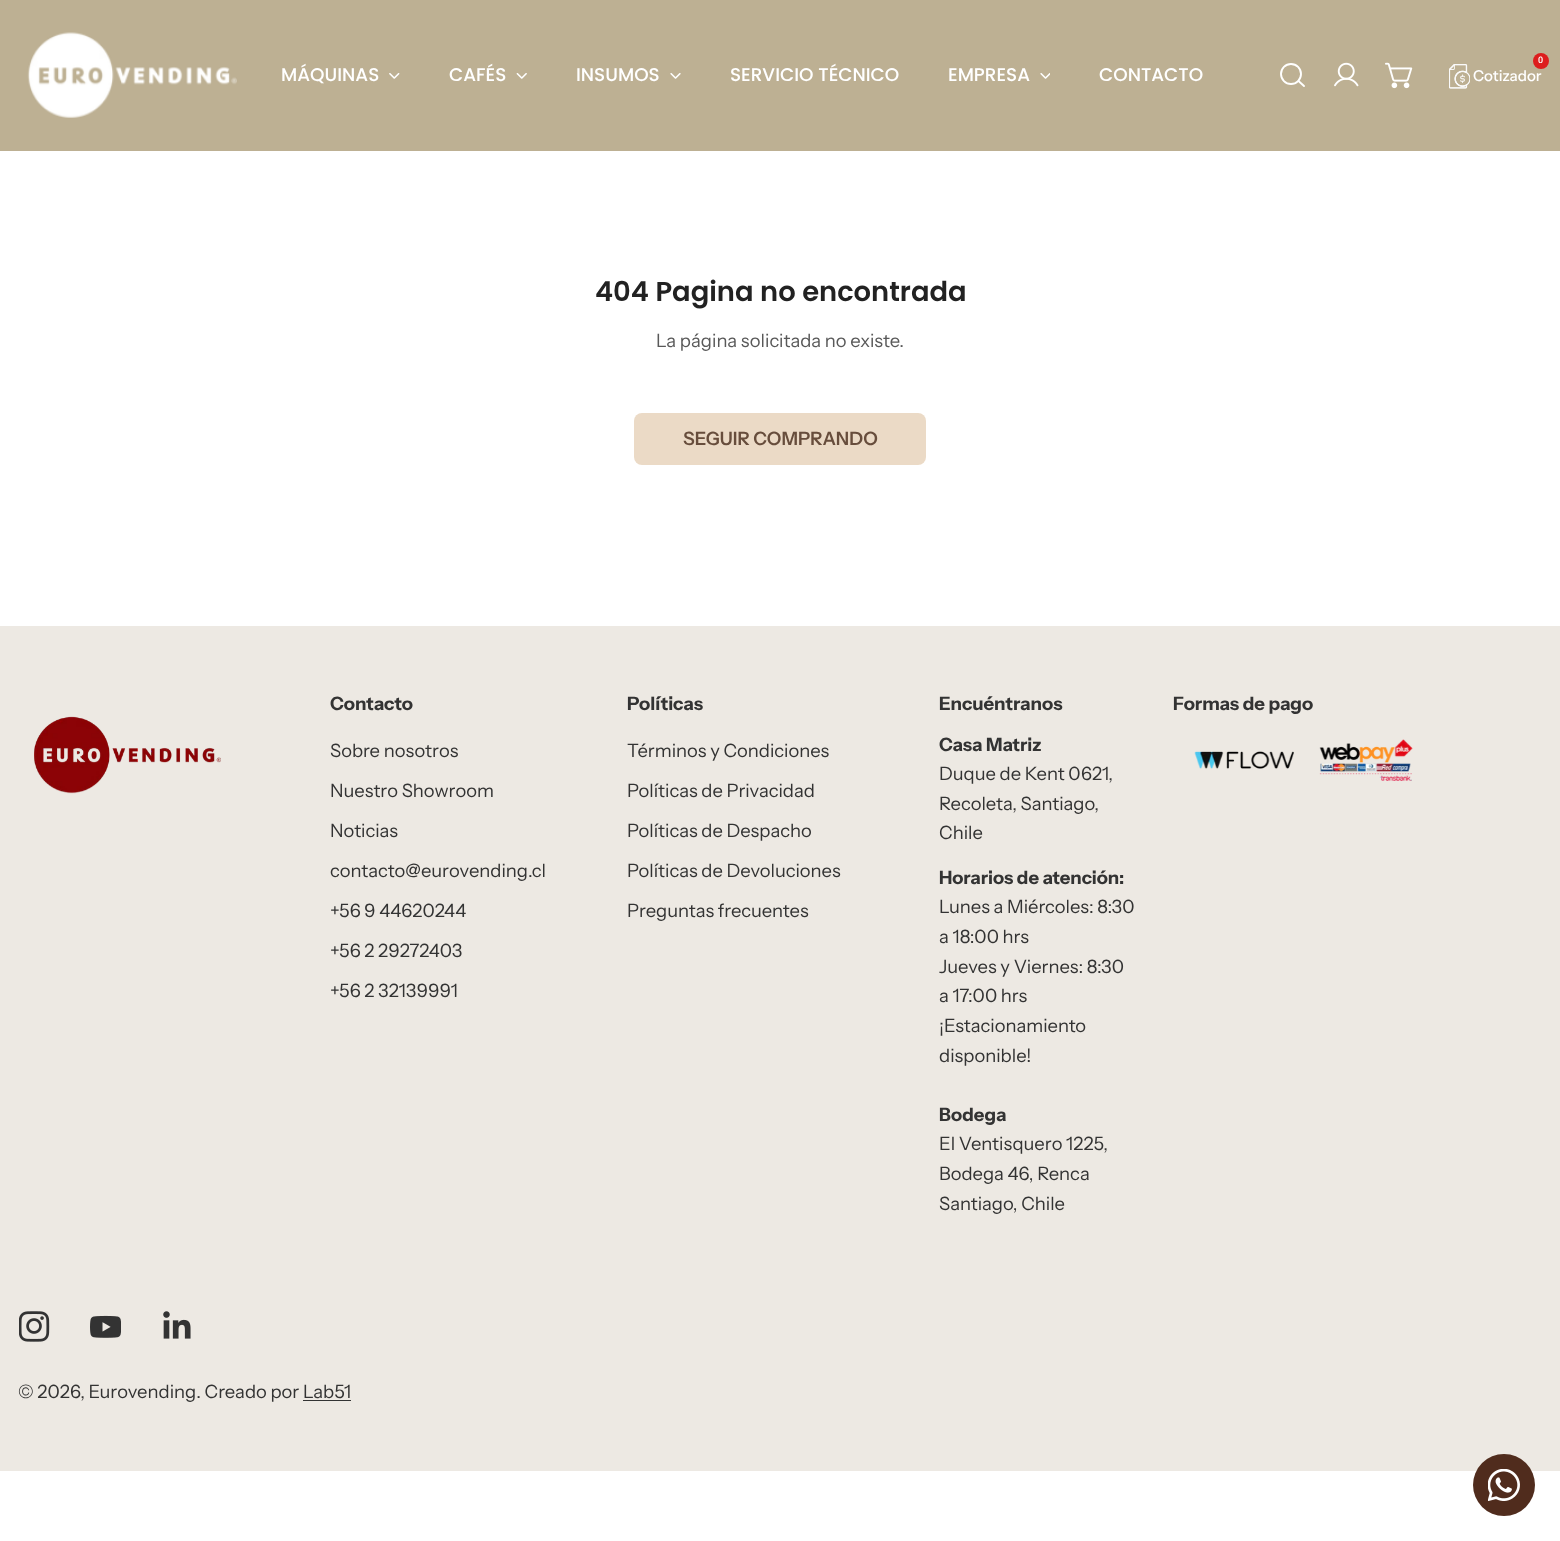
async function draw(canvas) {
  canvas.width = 1560;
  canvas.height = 1541;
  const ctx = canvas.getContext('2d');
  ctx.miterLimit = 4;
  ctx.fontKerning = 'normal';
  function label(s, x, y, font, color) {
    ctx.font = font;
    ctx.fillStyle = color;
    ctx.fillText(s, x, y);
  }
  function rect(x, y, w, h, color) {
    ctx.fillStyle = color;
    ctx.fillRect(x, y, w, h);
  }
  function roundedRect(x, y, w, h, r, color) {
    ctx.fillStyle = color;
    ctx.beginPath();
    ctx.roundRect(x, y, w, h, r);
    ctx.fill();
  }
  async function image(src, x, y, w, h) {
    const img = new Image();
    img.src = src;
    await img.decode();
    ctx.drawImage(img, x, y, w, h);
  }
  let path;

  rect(0, 0, 1560, 1541, '#fff');
  rect(0, 0, 1560, 151, '#bdb093');
  await image('assets/img1.png', 27, 32, 210, 86);
  label('MÁQUINAS', 281, 81, '500 18.4px Poppins', '#fff');
  await image('assets/img2.png', 389, 73, 11, 6);
  label('CAFÉS', 449, 81, '500 18.4px Poppins', '#fff');
  await image('assets/img3.png', 516, 73, 11, 6);
  label('INSUMOS', 576, 81, '500 18.4px Poppins', '#fff');
  await image('assets/img4.png', 670, 73, 11, 6);
  label('SERVICIO TÉCNICO', 730, 81, '500 18.4px Poppins', '#fff');
  label('EMPRESA', 948, 81, '500 18.4px Poppins', '#fff');
  await image('assets/img5.png', 1040, 73, 10, 6);
  label('CONTACTO', 1099, 81, '500 18.4px Poppins', '#fff');
  ctx.beginPath();
  ctx.arc(1291, 74, 10, 0, 2 * Math.PI);
  ctx.strokeStyle = '#fff';
  ctx.lineWidth = 1.9;
  ctx.stroke();
  path = new Path2D('M1304 86L1298.5 81');
  ctx.lineCap = 'round';
  ctx.lineJoin = 'round';
  ctx.stroke(path);
  await image('assets/img6.png', 1334, 62, 25, 25);
  await image('assets/img7.png', 1385, 62, 28, 27);
  ctx.fillStyle = '#dd1d1d';
  ctx.beginPath();
  ctx.arc(1541, 61, 8, 0, 2 * Math.PI);
  ctx.fill();
  label('0', 1538, 63, '500 9px Roboto', '#fff');
  await image('assets/img8.png', 1449, 64, 21, 25);
  label('Cotizador', 1473, 81, '500 15px Instrument Sans', '#fff');
  label('404 Pagina no encontrada', 595, 301, '600 27.4px Poppins', '#222');
  label('La página solicitada no existe.', 656, 347, '18.4px Instrument Sans', '#595959');
  roundedRect(634, 413, 292, 52, 8, '#ebdac6');
  label('SEGUIR COMPRANDO', 683, 445, '600 18.4px Instrument Sans', '#674d3c');
  rect(0, 626, 1560, 845, '#ede9e3');
  label('Contacto', 330, 710, 'bold 18.5px Instrument Sans', '#333');
  label('Sobre nosotros', 330, 757, '18.4px Instrument Sans', '#333');
  label('Nuestro Showroom', 330, 797, '18.4px Instrument Sans', '#333');
  label('Noticias', 330, 837, '18.4px Instrument Sans', '#333');
  label('contacto@eurovending.cl', 330, 877, '18.4px Instrument Sans', '#333');
  label('+56 9 44620244', 330, 917, '18.4px Instrument Sans', '#333');
  label('+56 2 29272403', 330, 957, '18.4px Instrument Sans', '#333');
  label('+56 2 32139991', 330, 997, '18.4px Instrument Sans', '#333');
  label('Políticas', 627, 710, 'bold 18.5px Instrument Sans', '#333');
  label('Términos y Condiciones', 627, 757, '18.4px Instrument Sans', '#333');
  label('Políticas de Privacidad', 627, 797, '18.4px Instrument Sans', '#333');
  label('Políticas de Despacho', 627, 837, '18.4px Instrument Sans', '#333');
  label('Políticas de Devoluciones', 627, 877, '18.4px Instrument Sans', '#333');
  label('Preguntas frecuentes', 627, 917, '18.4px Instrument Sans', '#333');
  label('Encuéntranos', 939, 710, 'bold 18.5px Instrument Sans', '#333');
  label('Casa Matriz', 939, 751, 'bold 18.4px Instrument Sans', '#333');
  label('Duque de Kent 0621,', 939, 780, '18.4px Instrument Sans', '#333');
  label('Recoleta, Santiago,', 939, 810, '18.4px Instrument Sans', '#333');
  label('Chile', 939, 839, '18.4px Instrument Sans', '#333');
  label('Horarios de atención:', 939, 884, 'bold 18.4px Instrument Sans', '#333');
  label('Lunes a Miércoles: 8:30', 939, 913, '18.4px Instrument Sans', '#333');
  label('a 18:00 hrs', 939, 943, '18.4px Instrument Sans', '#333');
  label('Jueves y Viernes: 8:30', 939, 973, '18.4px Instrument Sans', '#333');
  label('a 17:00 hrs', 939, 1002, '18.4px Instrument Sans', '#333');
  label('¡Estacionamiento', 939, 1032, '18.4px Instrument Sans', '#333');
  label('disponible!', 939, 1062, '18.4px Instrument Sans', '#333');
  label('Bodega', 939, 1121, 'bold 18.4px Instrument Sans', '#333');
  label('El Ventisquero 1225,', 939, 1150, '18.4px Instrument Sans', '#333');
  label('Bodega 46, Renca', 939, 1180, '18.4px Instrument Sans', '#333');
  label('Santiago, Chile', 939, 1210, '18.4px Instrument Sans', '#333');
  label('Formas de pago', 1173, 710, 'bold 18.5px Instrument Sans', '#333');
  await image('assets/img9.png', 1194, 739, 219, 42);
  await image('assets/img10.png', 34, 716, 187, 78);
  await image('assets/img11.png', 19, 1311, 31, 31);
  await image('assets/img12.png', 90, 1315, 31, 23);
  await image('assets/img13.png', 163, 1311, 28, 28);
  label('© 2026, Eurovending. Creado por Lab51', 18, 1398, '18.4px Instrument Sans', '#333');
  rect(303, 1400, 48, 1, '#333');
  ctx.fillStyle = '#502c1d';
  ctx.beginPath();
  ctx.arc(1504, 1485, 31, 0, 2 * Math.PI);
  ctx.fill();
  await image('assets/img14.png', 1488, 1469, 32, 32);
}

draw(document.querySelector('canvas'));
